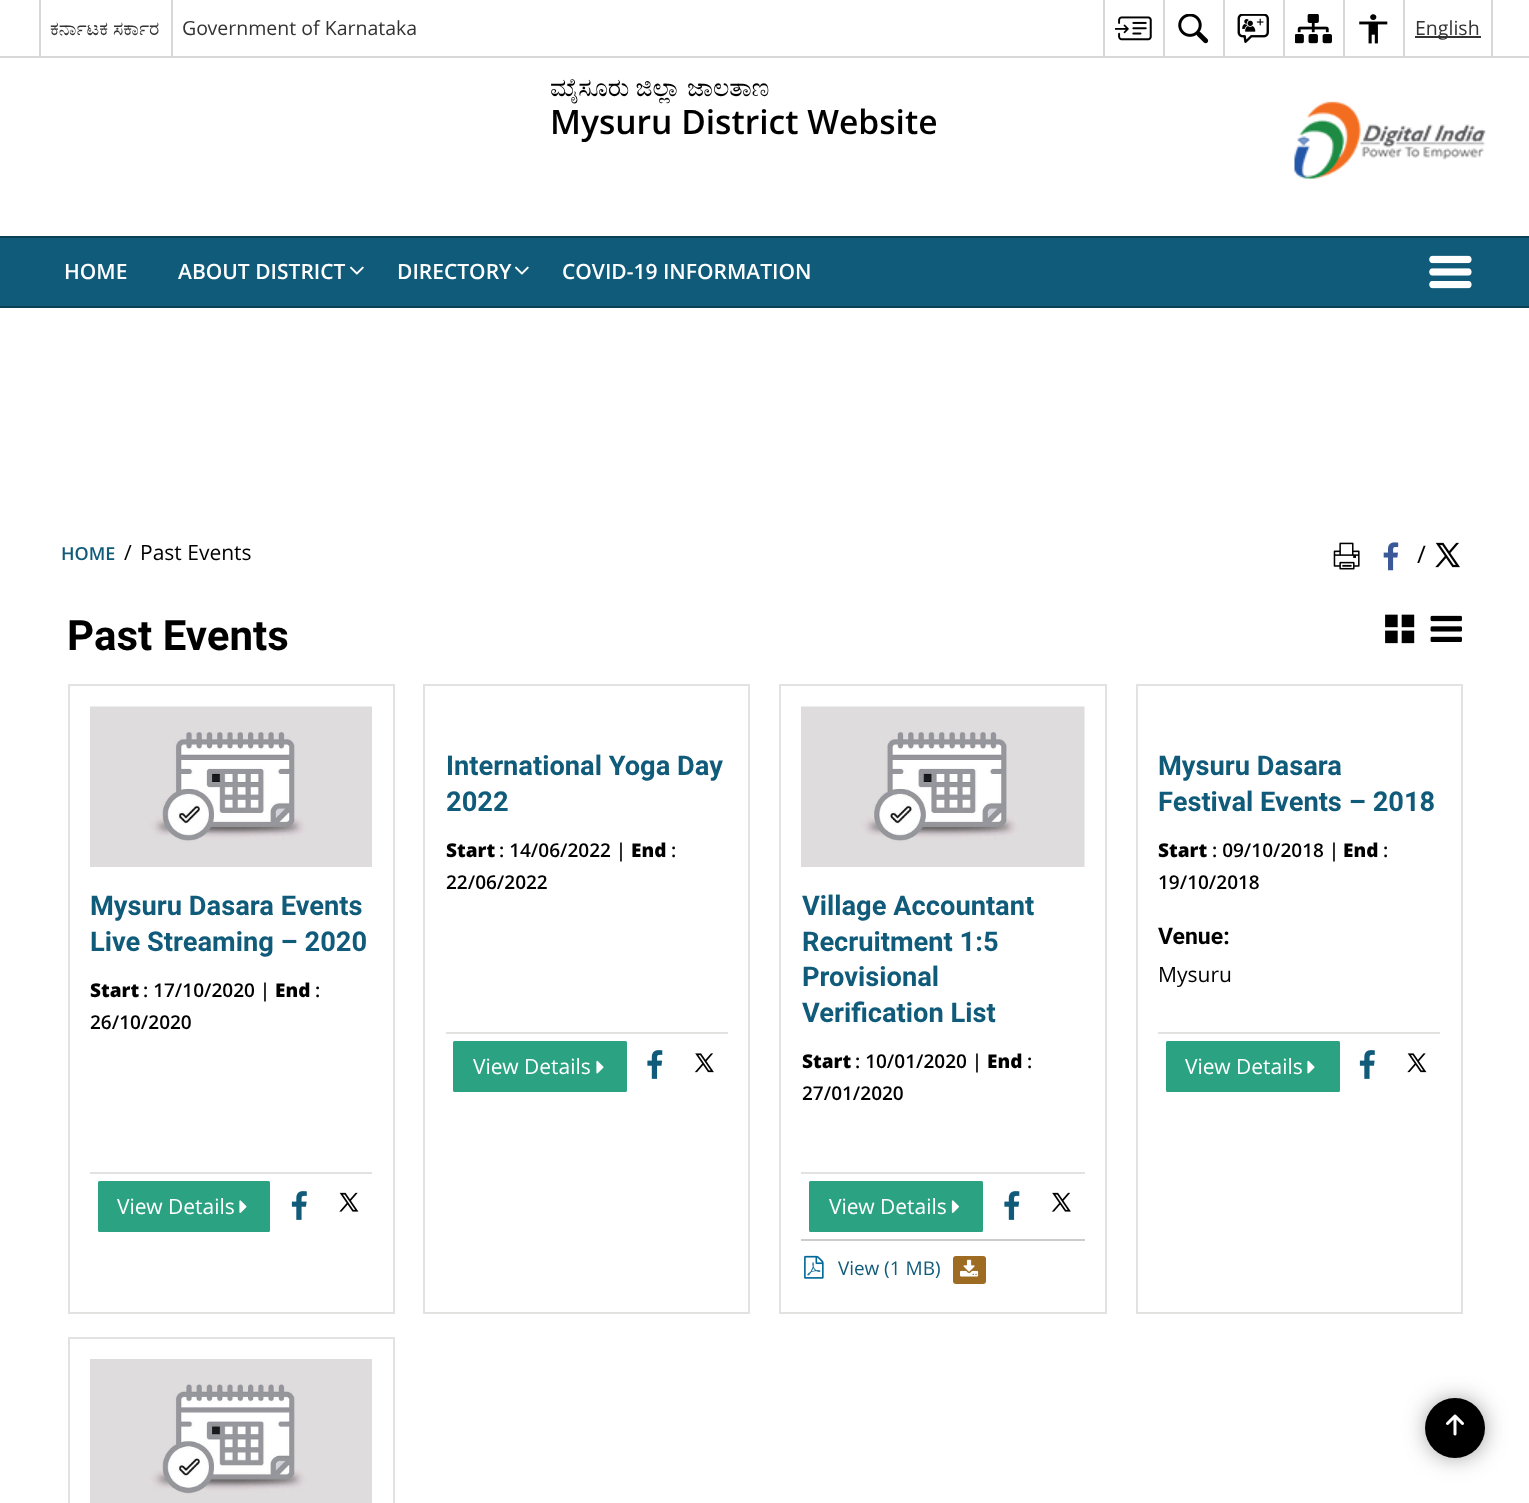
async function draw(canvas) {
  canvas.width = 1529;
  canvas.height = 1503;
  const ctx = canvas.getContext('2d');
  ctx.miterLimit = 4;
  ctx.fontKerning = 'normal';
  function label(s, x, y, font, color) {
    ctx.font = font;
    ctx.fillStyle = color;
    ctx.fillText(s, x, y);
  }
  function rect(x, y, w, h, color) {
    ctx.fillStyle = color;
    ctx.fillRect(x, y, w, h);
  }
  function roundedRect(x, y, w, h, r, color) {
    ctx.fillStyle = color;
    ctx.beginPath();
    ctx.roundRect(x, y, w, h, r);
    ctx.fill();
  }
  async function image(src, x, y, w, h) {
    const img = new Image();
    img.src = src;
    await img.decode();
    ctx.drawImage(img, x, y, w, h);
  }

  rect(0, 0, 1529, 1503, '#fff');
  rect(0, 56, 1529, 2, '#d8d8d8');
  rect(39, 0, 2, 56, '#d8d8d8');
  label('ಕರ್ನಾಟಕ ಸರ್ಕಾರ', 50, 35, '19.5px FreeSerif', '#333');
  rect(171, 0, 2, 56, '#d8d8d8');
  label('Government of Karnataka', 182, 35, '19.5px Open Sans', '#333');
  rect(1103, 0, 2, 56, '#d8d8d8');
  await image('assets/img1.png', 1115, 16, 37, 25);
  rect(1163, 0, 2, 56, '#d8d8d8');
  await image('assets/img2.png', 1178, 14, 31, 30);
  rect(1223, 0, 2, 56, '#d8d8d8');
  await image('assets/img3.png', 1237, 14, 32, 29);
  rect(1283, 0, 2, 56, '#d8d8d8');
  await image('assets/img4.png', 1295, 14, 37, 30);
  rect(1343, 0, 2, 56, '#d8d8d8');
  await image('assets/img5.png', 1359, 14, 29, 30);
  rect(1491, 0, 2, 56, '#d8d8d8');
  rect(1403, 0, 2, 56, '#d8d8d8');
  rect(1415, 36, 66, 2, '#333');
  label('English', 1415, 35, '19.5px Open Sans', '#333');
  label('ಮೈಸೂರು ಜಿಲ್ಲಾ ಜಾಲತಾಣ', 550, 96, '25.25px FreeSerif', '#000');
  label('Mysuru District Website', 550, 134, '600 33.6px Open Sans', '#000');
  await image('assets/img6.png', 1294, 101, 192, 78);
  rect(0, 238, 1529, 68, '#105b7a');
  rect(0, 236, 1529, 2, '#0b4055');
  rect(0, 306, 1529, 2, '#0b4055');
  label('HOME', 64, 279, '600 21px Open Sans', '#fff');
  label('ABOUT DISTRICT', 178, 279, '600 21px Open Sans', '#fff');
  await image('assets/img7.png', 349, 266, 15, 9);
  label('DIRECTORY', 397, 279, '600 21px Open Sans', '#fff');
  await image('assets/img7.png', 514, 266, 15, 9);
  label('COVID-19 INFORMATION', 562, 279, '600 21px Open Sans', '#fff');
  await image('assets/img8.png', 1429, 255, 43, 34);
  label('HOME', 61, 560, '600 18px Open Sans', '#105b7a');
  label('/', 124, 560, '21px Open Sans', '#000');
  label('Past Events', 140, 560, '21px Open Sans', '#000');
  await image('assets/img9.png', 1333, 542, 27, 28);
  await image('assets/img10.png', 1383, 542, 16, 29);
  label('/', 1417, 563, '24px Open Sans', '#000');
  await image('assets/img11.png', 1435, 542, 25, 26);
  label('Past Events', 67, 650, 'bold 42px Roboto', '#000');
  await image('assets/img12.png', 1385, 614, 30, 30);
  await image('assets/img13.png', 1430, 615, 32, 27);
  ctx.strokeStyle = '#e2e2e1';
  ctx.lineWidth = 2;
  ctx.strokeRect(69, 685, 325, 628);
  await image('assets/img14.png', 90, 706, 282, 161);
  rect(90, 1172, 282, 2, '#e2e2e1');
  label('Mysuru Dasara Events', 90, 915, 'bold 27.25px Roboto', '#105b7a');
  label('Live Streaming – 2020', 90, 951, 'bold 27.25px Roboto', '#105b7a');
  label('Start', 90, 997, '800 19px Open Sans', '#000');
  label(': 17/10/2020 |', 143, 997, '600 19px Open Sans', '#000');
  label('End', 275, 997, '800 19px Open Sans', '#000');
  label(':', 315, 997, '600 19px Open Sans', '#000');
  label('26/10/2020', 90, 1029, '600 19px Open Sans', '#000');
  ctx.fillStyle = '#2ba282';
  ctx.beginPath();
  ctx.roundRect(99, 1182, 170, 49, 0.5);
  ctx.fill();
  ctx.strokeStyle = '#2ba282';
  ctx.stroke();
  label('View Details', 117, 1214, '21px Open Sans', '#fff');
  await image('assets/img15.png', 239, 1200, 8, 13);
  await image('assets/img16.png', 291, 1191, 16, 29);
  await image('assets/img17.png', 339, 1192, 20, 20);
  ctx.strokeStyle = '#e2e2e1';
  ctx.strokeRect(424, 685, 325, 628);
  rect(446, 1032, 282, 2, '#e2e2e1');
  label('International Yoga Day', 446, 775, 'bold 27.25px Roboto', '#105b7a');
  label('2022', 446, 811, 'bold 27.25px Roboto', '#105b7a');
  label('Start', 446, 857, '800 19px Open Sans', '#000');
  label(': 14/06/2022 |', 499, 857, '600 19px Open Sans', '#000');
  label('End', 631, 857, '800 19px Open Sans', '#000');
  label(':', 671, 857, '600 19px Open Sans', '#000');
  label('22/06/2022', 446, 889, '600 19px Open Sans', '#000');
  ctx.fillStyle = '#2ba282';
  ctx.beginPath();
  ctx.roundRect(454, 1042, 172, 49, 0.5);
  ctx.fill();
  ctx.strokeStyle = '#2ba282';
  ctx.stroke();
  label('View Details', 473, 1074, '21px Open Sans', '#fff');
  await image('assets/img18.png', 596, 1060, 8, 14);
  await image('assets/img19.png', 647, 1050, 16, 29);
  await image('assets/img20.png', 694, 1053, 20, 20);
  ctx.strokeStyle = '#e2e2e1';
  ctx.strokeRect(780, 685, 326, 628);
  await image('assets/img21.png', 801, 706, 284, 161);
  rect(801, 1172, 284, 2, '#e2e2e1');
  label('Village Accountant', 802, 915, 'bold 27.25px Roboto', '#105b7a');
  label('Recruitment 1:5', 802, 951, 'bold 27.25px Roboto', '#105b7a');
  label('Provisional', 802, 986, 'bold 27.25px Roboto', '#105b7a');
  label('Verification List', 802, 1022, 'bold 27.25px Roboto', '#105b7a');
  label('Start', 802, 1068, '800 19px Open Sans', '#000');
  label(': 10/01/2020 |', 855, 1068, '600 19px Open Sans', '#000');
  label('End', 987, 1068, '800 19px Open Sans', '#000');
  label(':', 1027, 1068, '600 19px Open Sans', '#000');
  label('27/01/2020', 802, 1100, '600 19px Open Sans', '#000');
  ctx.fillStyle = '#2ba282';
  ctx.beginPath();
  ctx.roundRect(810, 1182, 172, 49, 0.5);
  ctx.fill();
  ctx.strokeStyle = '#2ba282';
  ctx.stroke();
  label('View Details', 829, 1214, '21px Open Sans', '#fff');
  await image('assets/img22.png', 951, 1200, 8, 13);
  await image('assets/img19.png', 1004, 1191, 16, 29);
  await image('assets/img23.png', 1051, 1192, 20, 20);
  rect(801, 1239, 284, 2, '#ccc');
  await image('assets/img24.png', 804, 1255, 20, 24);
  label('View (1 MB)', 838, 1275, '19px Open Sans', '#105b7a');
  roundedRect(953, 1256, 33, 28, 3, '#9e6b22');
  await image('assets/img25.png', 960, 1259, 19, 18);
  ctx.strokeStyle = '#e2e2e1';
  ctx.strokeRect(1137, 685, 325, 628);
  rect(1158, 1032, 282, 2, '#e2e2e1');
  label('Mysuru Dasara', 1158, 775, 'bold 27.25px Roboto', '#105b7a');
  label('Festival Events – 2018', 1158, 811, 'bold 27.25px Roboto', '#105b7a');
  label('Start', 1158, 857, '800 19px Open Sans', '#000');
  label(': 09/10/2018 |', 1212, 857, '600 19px Open Sans', '#000');
  label('End', 1343, 857, '800 19px Open Sans', '#000');
  label(':', 1383, 857, '600 19px Open Sans', '#000');
  label('19/10/2018', 1158, 889, '600 19px Open Sans', '#000');
  label('Venue:', 1158, 944, 'bold 23px Roboto', '#000');
  label('Mysuru', 1158, 982, '21px Open Sans', '#000');
  ctx.fillStyle = '#2ba282';
  ctx.beginPath();
  ctx.roundRect(1167, 1042, 172, 49, 0.5);
  ctx.fill();
  ctx.strokeStyle = '#2ba282';
  ctx.stroke();
  label('View Details', 1185, 1074, '21px Open Sans', '#fff');
  await image('assets/img18.png', 1307, 1060, 8, 14);
  await image('assets/img16.png', 1359, 1050, 16, 29);
  await image('assets/img26.png', 1407, 1053, 20, 20);
  ctx.strokeStyle = '#e2e2e1';
  ctx.strokeRect(69, 1338, 325, 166);
  await image('assets/img27.png', 90, 1359, 282, 144);
  ctx.fillStyle = '#3c3c3c';
  ctx.filter = 'blur(14px)';
  ctx.beginPath();
  ctx.roundRect(1433, 1406, 45, 45, 22.5);
  ctx.fill();
  ctx.filter = 'none';
  ctx.fillStyle = '#000';
  ctx.beginPath();
  ctx.arc(1455, 1428, 30, 0, 2 * Math.PI);
  ctx.fill();
  await image('assets/img28.png', 1446, 1414, 18, 22);
}

draw(document.querySelector('canvas'));
